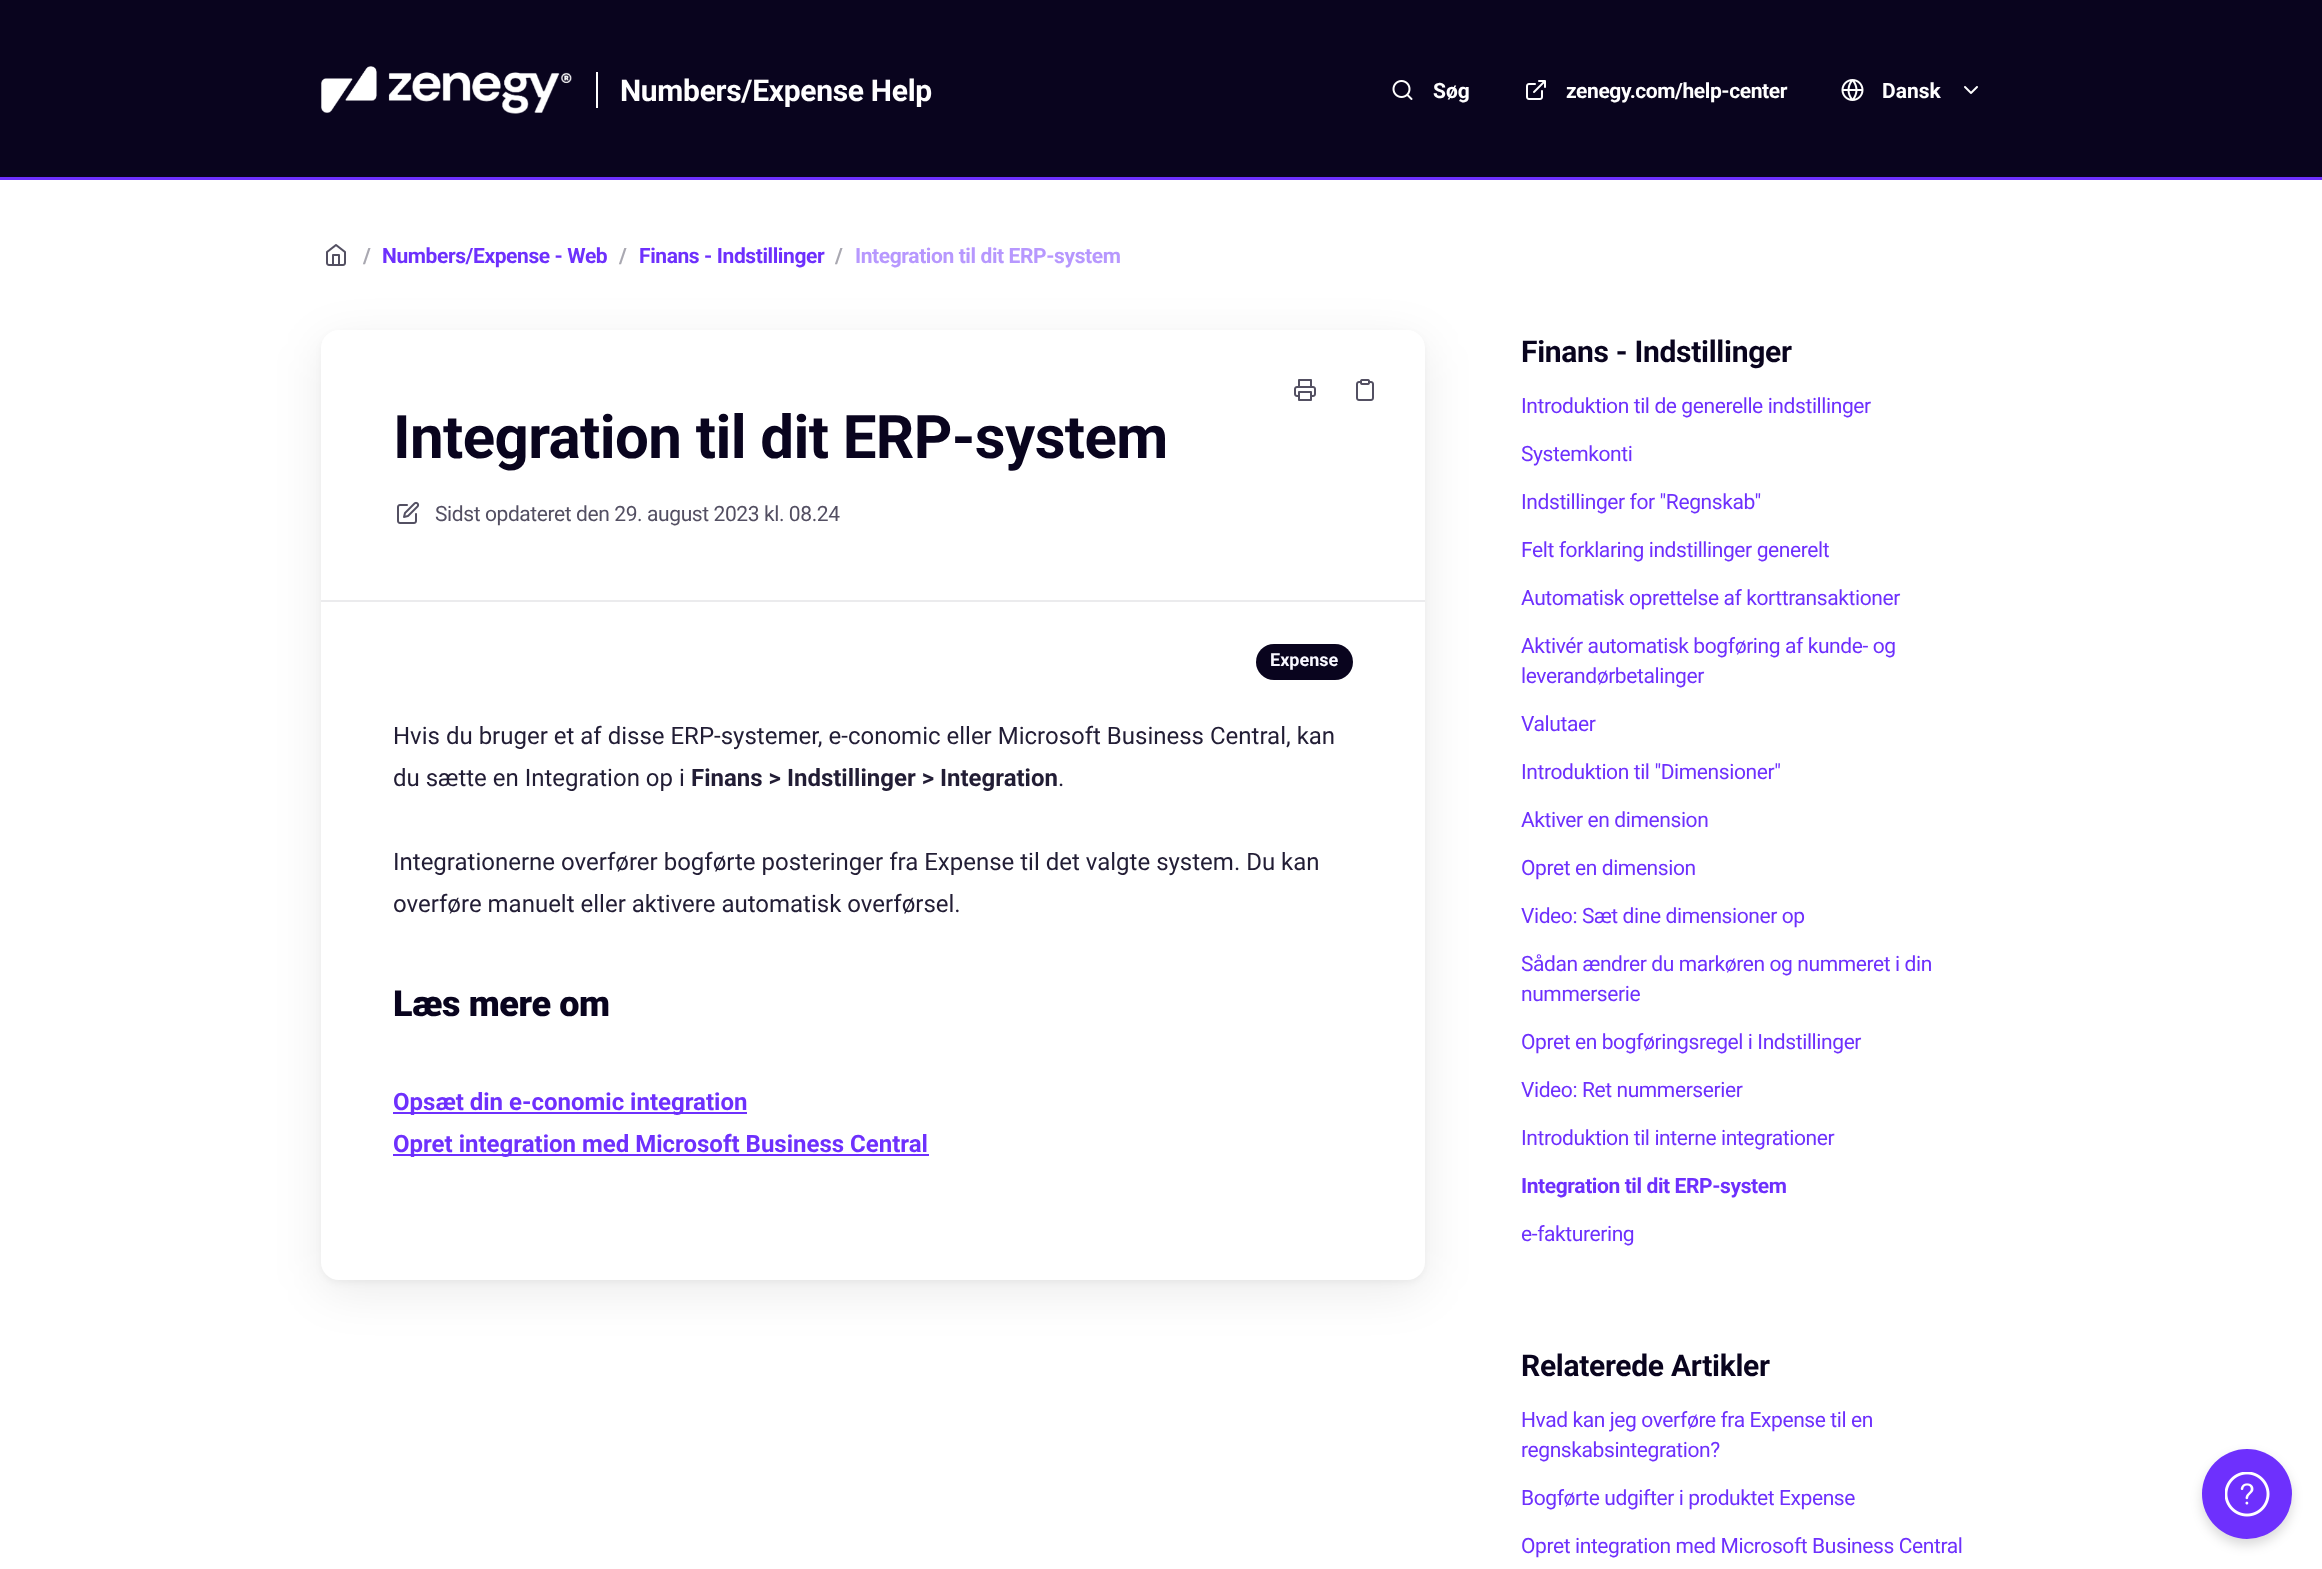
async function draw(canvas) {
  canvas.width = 2322;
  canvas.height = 1569;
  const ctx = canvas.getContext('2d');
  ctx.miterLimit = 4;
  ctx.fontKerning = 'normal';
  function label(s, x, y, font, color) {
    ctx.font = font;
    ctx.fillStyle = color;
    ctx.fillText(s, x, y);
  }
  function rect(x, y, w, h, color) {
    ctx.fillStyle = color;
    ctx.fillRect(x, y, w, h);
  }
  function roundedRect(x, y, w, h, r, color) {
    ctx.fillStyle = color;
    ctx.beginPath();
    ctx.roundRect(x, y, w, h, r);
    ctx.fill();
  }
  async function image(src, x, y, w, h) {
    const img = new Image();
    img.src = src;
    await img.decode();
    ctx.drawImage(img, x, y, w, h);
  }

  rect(0, 0, 2322, 1569, '#fff');
  rect(0, 0, 2322, 177, '#09041e');
  await image('assets/img1.png', 321, 66, 251, 48);
  rect(596, 72, 2, 36, '#fff');
  ctx.letterSpacing = '-0.3px';
  label('Numbers/Expense Help', 620, 101, 'bold 30px Roboto', '#fff');
  await image('assets/img2.png', 1392, 80, 21, 20);
  ctx.letterSpacing = '0px';
  label('Søg', 1433, 98, 'bold 21px Roboto', '#fff');
  await image('assets/img3.png', 1526, 80, 20, 20);
  ctx.letterSpacing = '-0.4px';
  label('zenegy.com/help-center', 1566, 98, 'bold 21px Roboto', '#fff');
  await image('assets/img4.png', 1841, 79, 23, 22);
  ctx.letterSpacing = '0px';
  label('Dansk', 1882, 98, 'bold 21px Roboto', '#fff');
  await image('assets/img5.png', 1964, 86, 14, 8);
  rect(0, 177, 2322, 3, '#6e30fd');
  await image('assets/img6.png', 326, 244, 20, 22);
  ctx.letterSpacing = '-0.4px';
  label('/', 363, 263, 'bold 21px Roboto', '#a9a8b1');
  label('Numbers/Expense - Web', 382, 263, 'bold 21px Roboto', '#6e30fd');
  label('/', 619, 263, 'bold 21px Roboto', '#a9a8b1');
  label('Finans - Indstillinger', 639, 263, 'bold 21px Roboto', '#6e30fd');
  label('/', 835, 263, 'bold 21px Roboto', '#a9a8b1');
  label('Integration til dit ERP-system', 855, 263, 'bold 21px Roboto', '#b798fe');
  ctx.fillStyle = '#0000000a';
  ctx.filter = 'blur(3px)';
  ctx.beginPath();
  ctx.roundRect(321, 333, 1104, 950, 18);
  ctx.fill();
  ctx.filter = 'none';
  ctx.fillStyle = '#00000014';
  ctx.filter = 'blur(24px)';
  ctx.beginPath();
  ctx.roundRect(321, 342, 1104, 950, 18);
  ctx.fill();
  ctx.filter = 'none';
  roundedRect(321, 330, 1104, 950, 18, '#fff');
  await image('assets/img7.png', 1294, 379, 22, 22);
  await image('assets/img8.png', 1356, 379, 18, 22);
  ctx.letterSpacing = '-0.6px';
  label('Integration til dit ERP-system', 393, 458, 'bold 60px Roboto', '#09041e');
  await image('assets/img9.png', 397, 501, 23, 23);
  ctx.letterSpacing = '-0.4px';
  label('Sidst opdateret den 29. august 2023 kl. 08.24', 435, 521, '21px Roboto', '#534f62');
  rect(321, 600, 1104, 2, '#ebebed');
  roundedRect(1256, 644, 97, 36, 18, '#09041e');
  ctx.letterSpacing = '0px';
  label('Expense', 1270, 666, 'bold 18px Roboto', '#f8f7ff');
  label('Hvis du bruger et af disse ERP-systemer, e-conomic eller Microsoft Business Central, kan', 393, 744, '24px Roboto', '#221d35');
  label('du sætte en Integration op i', 393, 786, '24px Roboto', '#221d35');
  label('Finans > Indstillinger > Integration', 691, 786, 'bold 24px Roboto', '#221d35');
  label('.', 1058, 786, '24px Roboto', '#221d35');
  label('Integrationerne overfører bogførte posteringer fra Expense til det valgte system. Du kan', 393, 870, '24px Roboto', '#221d35');
  label('overføre manuelt eller aktivere automatisk overførsel.', 393, 912, '24px Roboto', '#221d35');
  ctx.letterSpacing = '-0.4px';
  label('Læs mere om', 393, 1016, '900 36px Roboto', '#09041e');
  rect(393, 1112, 354, 2, '#6e30fd');
  ctx.letterSpacing = '0px';
  label('Opsæt din e-conomic integration', 393, 1110, 'bold 24px Roboto', '#6e30fd');
  rect(393, 1154, 536, 2, '#6e30fd');
  label('Opret integration med Microsoft Business Central', 393, 1152, 'bold 24px Roboto', '#6e30fd');
  ctx.letterSpacing = '-0.3px';
  label('Finans - Indstillinger', 1521, 362, 'bold 30px Roboto', '#09041e');
  ctx.letterSpacing = '-0.4px';
  label('Introduktion til de generelle indstillinger', 1521, 413, '21px Roboto', '#6e30fd');
  label('Systemkonti', 1521, 461, '21px Roboto', '#6e30fd');
  label('Indstillinger for "Regnskab"', 1521, 509, '21px Roboto', '#6e30fd');
  label('Felt forklaring indstillinger generelt', 1521, 557, '21px Roboto', '#6e30fd');
  label('Automatisk oprettelse af korttransaktioner', 1521, 605, '21px Roboto', '#6e30fd');
  label('Aktivér automatisk bogføring af kunde- og', 1521, 653, '21px Roboto', '#6e30fd');
  label('leverandørbetalinger', 1521, 683, '21px Roboto', '#6e30fd');
  label('Valutaer', 1521, 731, '21px Roboto', '#6e30fd');
  label('Introduktion til "Dimensioner"', 1521, 779, '21px Roboto', '#6e30fd');
  label('Aktiver en dimension', 1521, 827, '21px Roboto', '#6e30fd');
  label('Opret en dimension', 1521, 875, '21px Roboto', '#6e30fd');
  label('Video: Sæt dine dimensioner op', 1521, 923, '21px Roboto', '#6e30fd');
  label('Sådan ændrer du markøren og nummeret i din', 1521, 971, '21px Roboto', '#6e30fd');
  label('nummerserie', 1521, 1001, '21px Roboto', '#6e30fd');
  label('Opret en bogføringsregel i Indstillinger', 1521, 1049, '21px Roboto', '#6e30fd');
  label('Video: Ret nummerserier', 1521, 1097, '21px Roboto', '#6e30fd');
  label('Introduktion til interne integrationer', 1521, 1145, '21px Roboto', '#6e30fd');
  label('Integration til dit ERP-system', 1521, 1193, 'bold 21px Roboto', '#6e30fd');
  label('e-fakturering', 1521, 1241, '21px Roboto', '#6e30fd');
  ctx.letterSpacing = '-0.3px';
  label('Relaterede Artikler', 1521, 1376, 'bold 30px Roboto', '#09041e');
  ctx.letterSpacing = '-0.4px';
  label('Hvad kan jeg overføre fra Expense til en', 1521, 1427, '21px Roboto', '#6e30fd');
  label('regnskabsintegration?', 1521, 1457, '21px Roboto', '#6e30fd');
  label('Bogførte udgifter i produktet Expense', 1521, 1505, '21px Roboto', '#6e30fd');
  label('Opret integration med Microsoft Business Central', 1521, 1553, '21px Roboto', '#6e30fd');
  ctx.fillStyle = '#00000026';
  ctx.filter = 'blur(6px)';
  ctx.beginPath();
  ctx.roundRect(2202, 1455, 90, 90, 45);
  ctx.fill();
  ctx.filter = 'none';
  ctx.fillStyle = '#6e30fd';
  ctx.beginPath();
  ctx.arc(2247, 1494, 45, 0, 2 * Math.PI);
  ctx.fill();
  await image('assets/img10.png', 2225, 1472, 45, 45);
}

draw(document.querySelector('canvas'));
